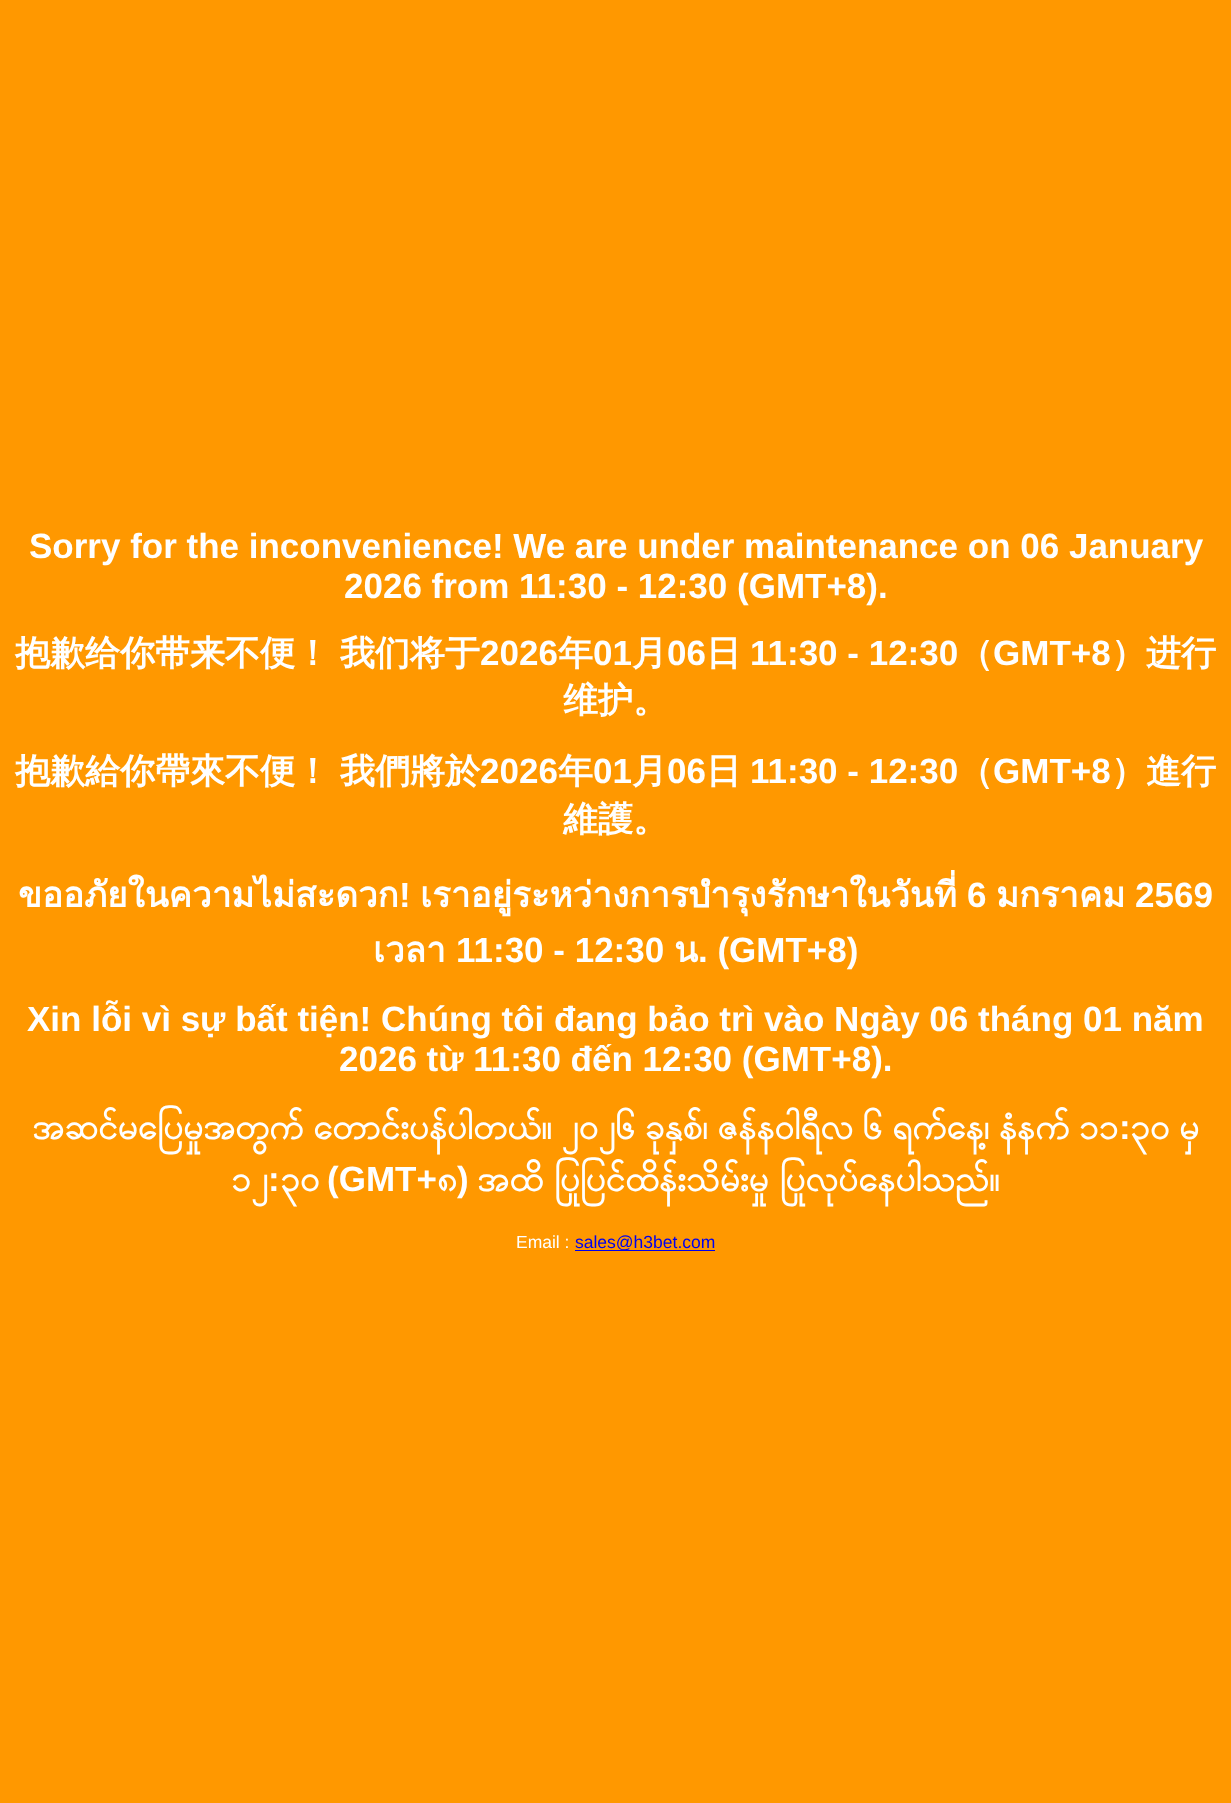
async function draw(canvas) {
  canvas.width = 1231;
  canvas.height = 1803;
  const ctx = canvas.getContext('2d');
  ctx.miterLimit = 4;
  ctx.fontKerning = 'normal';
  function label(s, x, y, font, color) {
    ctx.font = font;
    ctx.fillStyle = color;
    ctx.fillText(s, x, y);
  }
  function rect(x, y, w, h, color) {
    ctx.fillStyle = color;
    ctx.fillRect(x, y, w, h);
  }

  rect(0, 0, 1231, 1803, '#ff9800');
  label('Sorry for the inconvenience! We are under maintenance on 06 January', 29, 558, 'bold 35px Liberation Sans', '#fff');
  label('2026 from 11:30 - 12:30 (GMT+8).', 344, 598, 'bold 35px Liberation Sans', '#fff');
  label('抱歉给你带来不便！', 15, 665, 'bold 35px WenQuanYi Zen Hei', '#fff');
  label('我们将于', 340, 665, 'bold 35px WenQuanYi Zen Hei', '#fff');
  label('2026', 480, 665, 'bold 35px Liberation Sans', '#fff');
  label('年', 558, 665, 'bold 35px WenQuanYi Zen Hei', '#fff');
  label('01', 593, 665, 'bold 35px Liberation Sans', '#fff');
  label('月', 632, 665, 'bold 35px WenQuanYi Zen Hei', '#fff');
  label('06', 667, 665, 'bold 35px Liberation Sans', '#fff');
  label('日', 706, 665, 'bold 35px WenQuanYi Zen Hei', '#fff');
  label('11:30 - 12:30', 750, 665, 'bold 35px Liberation Sans', '#fff');
  label('（', 958, 665, 'bold 35px WenQuanYi Zen Hei', '#fff');
  label('GMT+8', 993, 665, 'bold 35px Liberation Sans', '#fff');
  label('）进行', 1111, 665, 'bold 35px WenQuanYi Zen Hei', '#fff');
  label('维护。', 563, 712, 'bold 35px WenQuanYi Zen Hei', '#fff');
  label('抱歉給你帶來不便！', 15, 783, 'bold 35px WenQuanYi Zen Hei', '#fff');
  label('我們將於', 340, 783, 'bold 35px WenQuanYi Zen Hei', '#fff');
  label('2026', 480, 783, 'bold 35px Liberation Sans', '#fff');
  label('年', 558, 783, 'bold 35px WenQuanYi Zen Hei', '#fff');
  label('01', 593, 783, 'bold 35px Liberation Sans', '#fff');
  label('月', 632, 783, 'bold 35px WenQuanYi Zen Hei', '#fff');
  label('06', 667, 783, 'bold 35px Liberation Sans', '#fff');
  label('日', 706, 783, 'bold 35px WenQuanYi Zen Hei', '#fff');
  label('11:30 - 12:30', 750, 783, 'bold 35px Liberation Sans', '#fff');
  label('（', 958, 783, 'bold 35px WenQuanYi Zen Hei', '#fff');
  label('GMT+8', 993, 783, 'bold 35px Liberation Sans', '#fff');
  label('）進行', 1111, 783, 'bold 35px WenQuanYi Zen Hei', '#fff');
  label('維護。', 563, 831, 'bold 35px WenQuanYi Zen Hei', '#fff');
  label('ขออภัยในความไม่สะดวก', 18, 907, 'bold 35px Loma', '#fff');
  label('!', 399, 907, 'bold 35px Liberation Sans', '#fff');
  label('เราอยู่ระหว่างการบำรุงรักษาในวันที่', 420, 907, 'bold 35px Loma', '#fff');
  label('6', 967, 907, 'bold 35px Liberation Sans', '#fff');
  label('มกราคม', 996, 907, 'bold 35px Loma', '#fff');
  label('2569', 1135, 907, 'bold 35px Liberation Sans', '#fff');
  label('เวลา', 373, 962, 'bold 35px Loma', '#fff');
  label('11:30 - 12:30', 456, 962, 'bold 35px Liberation Sans', '#fff');
  label('น', 674, 962, 'bold 35px Loma', '#fff');
  label('. (GMT+8)', 698, 962, 'bold 35px Liberation Sans', '#fff');
  label('Xin lỗi vì sự bất tiện! Chúng tôi đang bảo trì vào Ngày 06 tháng 01 năm', 27, 1031, 'bold 35px Liberation Sans', '#fff');
  label('2026 từ 11:30 đến 12:30 (GMT+8).', 339, 1071, 'bold 35px Liberation Sans', '#fff');
  ctx.wordSpacing = '-3.25px';
  label('အဆင်မပြေမှုအတွက် တောင်းပန်ပါတယ်။ ၂၀၂၆ ခုနှစ်၊ ဇန်နဝါရီလ ၆ ရက်နေ့၊ နံနက် ၁၁', 32, 1139, 'bold 35px Padauk', '#fff');
  ctx.wordSpacing = '0px';
  label(':', 1119, 1139, 'bold 35px Liberation Sans', '#fff');
  ctx.wordSpacing = '-3.25px';
  label('၃၀ မှ', 1130, 1139, 'bold 35px Padauk', '#fff');
  ctx.wordSpacing = '0px';
  label('၁၂', 231, 1191, 'bold 35px Padauk', '#fff');
  label(':', 268, 1191, 'bold 35px Liberation Sans', '#fff');
  label('၃၀', 280, 1191, 'bold 35px Padauk', '#fff');
  label('(GMT+', 327, 1191, 'bold 35px Liberation Sans', '#fff');
  label('၈', 437, 1191, 'bold 35px Padauk', '#fff');
  label(')', 457, 1191, 'bold 35px Liberation Sans', '#fff');
  ctx.wordSpacing = '-2px';
  label('အထိ ပြုပြင်ထိန်းသိမ်းမှု ပြုလုပ်နေပါသည်။', 477, 1191, 'bold 35px Padauk', '#fff');
  ctx.wordSpacing = '0px';
  label('Email :', 516, 1248, '17.5px Liberation Sans', '#fff');
  rect(575, 1250, 140, 1, '#00e');
  label('sales@h3bet.com', 575, 1248, '17.5px Liberation Sans', '#00e');
}

draw(document.querySelector('canvas'));
